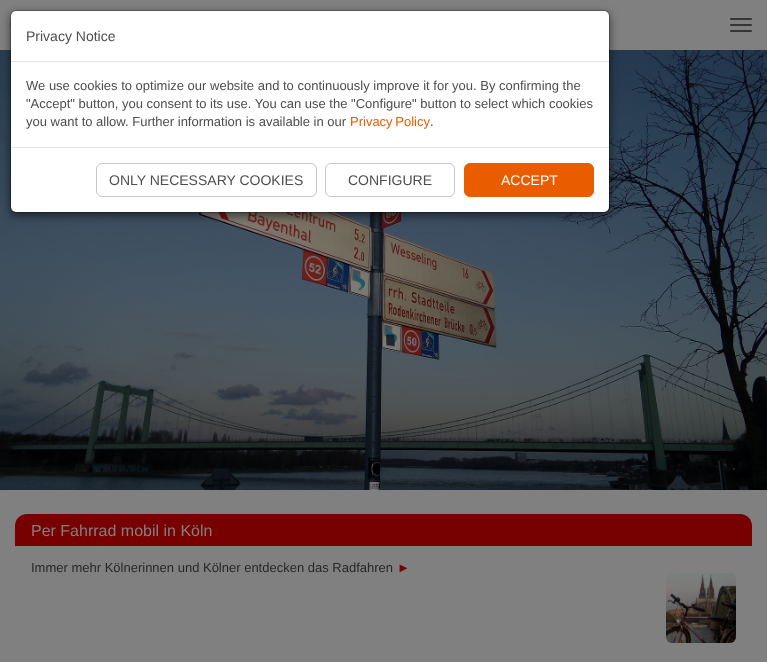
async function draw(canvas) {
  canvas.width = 767;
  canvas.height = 662;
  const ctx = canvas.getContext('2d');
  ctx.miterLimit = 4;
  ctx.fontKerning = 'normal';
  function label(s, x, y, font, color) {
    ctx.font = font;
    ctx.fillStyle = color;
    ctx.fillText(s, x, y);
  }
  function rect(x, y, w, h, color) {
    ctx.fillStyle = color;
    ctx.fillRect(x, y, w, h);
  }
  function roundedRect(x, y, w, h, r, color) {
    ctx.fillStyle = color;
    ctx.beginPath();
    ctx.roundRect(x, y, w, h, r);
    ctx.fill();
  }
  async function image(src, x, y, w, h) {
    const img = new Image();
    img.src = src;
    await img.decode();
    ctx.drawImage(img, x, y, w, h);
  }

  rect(0, 0, 767, 662, '#808080');
  await image('assets/img1.png', 10, 23, 1, 3);
  await image('assets/img2.png', 0, 50, 767, 440);
  ctx.fillStyle = '#00000080';
  ctx.filter = 'blur(4.5px)';
  ctx.beginPath();
  ctx.roundRect(10, 13, 600, 203, 6);
  ctx.fill();
  ctx.filter = 'none';
  roundedRect(11, 11, 598, 201, 5, '#fff');
  ctx.beginPath();
  ctx.roundRect(10.5, 10.5, 599, 202, 5.5);
  ctx.strokeStyle = '#00000033';
  ctx.stroke();
  rect(11, 61, 598, 1, '#e5e5e5');
  label('Privacy Notice', 26, 41, '14px Liberation Sans', '#4d4d4d');
  label('We use cookies to optimize our website and to continuously improve it for you. By confirming the', 26, 90, '13px Liberation Sans', '#4d4d4d');
  label('"Accept" button, you consent to its use. You can use the "Configure" button to select which cookies', 26, 108, '13px Liberation Sans', '#4d4d4d');
  label('you want to allow. Further information is available in our', 26, 126, '13px Liberation Sans', '#4d4d4d');
  ctx.wordSpacing = '-1px';
  label('Privacy Policy', 350, 126, '13px Liberation Sans', '#e95d00');
  ctx.wordSpacing = '0px';
  label('.', 430, 126, '13px Liberation Sans', '#4d4d4d');
  rect(11, 147, 598, 1, '#e5e5e5');
  ctx.beginPath();
  ctx.roundRect(96.5, 163.5, 220, 33, 5.5);
  ctx.strokeStyle = '#c6c6c6';
  ctx.stroke();
  label('ONLY NECESSARY COOKIES', 109, 185, '14px Liberation Sans', '#4d4d4d');
  ctx.beginPath();
  ctx.roundRect(325.5, 163.5, 129, 33, 5.5);
  ctx.stroke();
  label('CONFIGURE', 348, 185, '14px Liberation Sans', '#4d4d4d');
  ctx.fillStyle = '#e95d00';
  ctx.beginPath();
  ctx.roundRect(464.5, 163.5, 129, 33, 5.5);
  ctx.fill();
  ctx.strokeStyle = '#e95d00';
  ctx.stroke();
  label('ACCEPT', 501, 185, '14px Liberation Sans', '#fff');
  roundedRect(730, 18, 22, 2, 1, '#353535');
  roundedRect(730, 24, 22, 2, 1, '#353535');
  roundedRect(730, 30, 22, 2, 1, '#353535');
  ctx.fillStyle = '#700';
  ctx.beginPath();
  ctx.roundRect(15, 514, 737, 32, [12, 12, 0, 0]);
  ctx.fill();
  label('Per Fahrrad mobil in Köln', 31, 536, '16px Liberation Sans', '#808080');
  label('Immer mehr Kölnerinnen und Kölner entdecken das Radfahren', 31, 572, '13px Liberation Sans', '#272727');
  label('►', 397, 572, '13px Liberation Sans', '#700');
  await image('assets/img3.png', 666, 573, 70, 70);
}

draw(document.querySelector('canvas'));
